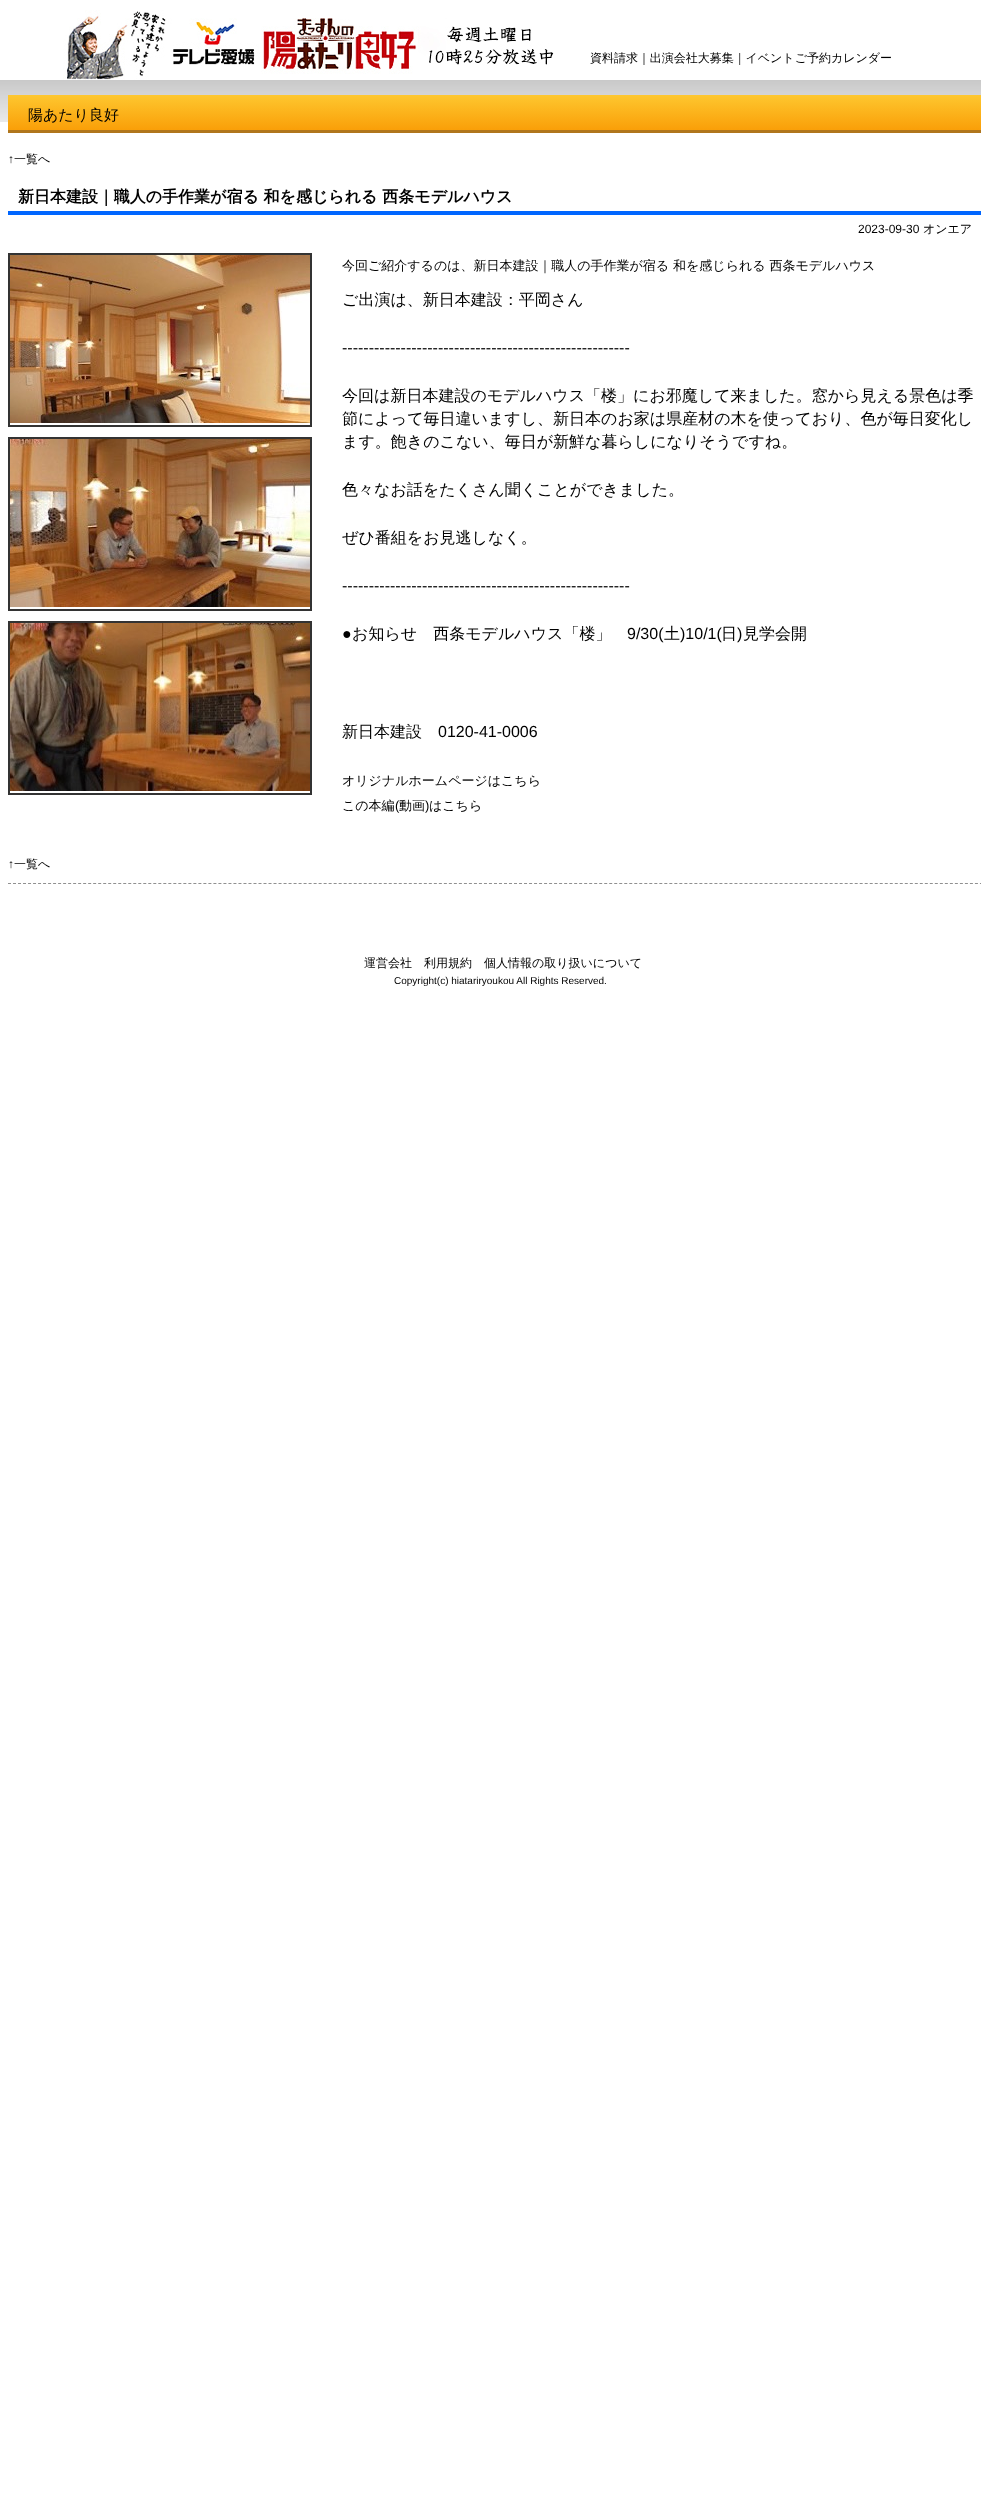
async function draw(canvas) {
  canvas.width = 981;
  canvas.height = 2510;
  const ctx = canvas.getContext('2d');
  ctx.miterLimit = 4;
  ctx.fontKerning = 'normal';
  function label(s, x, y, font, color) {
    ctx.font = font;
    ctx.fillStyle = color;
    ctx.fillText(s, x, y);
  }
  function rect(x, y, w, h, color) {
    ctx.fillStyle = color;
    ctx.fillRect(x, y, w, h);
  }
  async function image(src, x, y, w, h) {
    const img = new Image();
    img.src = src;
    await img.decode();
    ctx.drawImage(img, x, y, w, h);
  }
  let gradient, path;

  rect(0, 0, 981, 2510, '#fff');
  await image('assets/img1.png', 0, 80, 981, 42);
  await image('assets/img2.png', 63, 10, 491, 70);
  label('資料請求｜出演会社大募集｜イベントご予約カレンダー', 590, 62, '500 12px WenQuanYi Zen Hei', '#000');
  rect(8, 130, 973, 3, '#b0761d');
  gradient = ctx.createLinearGradient(500, 95, 500, 130);
  gradient.addColorStop(0, '#fec72f');
  gradient.addColorStop(1, '#fa9f08');
  ctx.fillStyle = gradient;
  ctx.fillRect(8, 95, 973, 35);
  label('陽あたり良好', 28, 120, '500 15px WenQuanYi Zen Hei', '#000');
  label('↑', 8, 163, '12px Liberation Sans', '#000');
  label('一覧へ', 14, 163, '500 12px WenQuanYi Zen Hei', '#000');
  rect(8, 211, 973, 4, '#06f');
  label('新日本建設｜職人の手作業が宿る 和を感じられる 西条モデルハウス', 18, 202, 'bold 16px WenQuanYi Zen Hei', '#000');
  label('2023-09-30', 858, 233, '12px Liberation Sans', '#000');
  label('オンエア', 923, 233, '500 12px WenQuanYi Zen Hei', '#000');
  ctx.strokeStyle = '#333';
  ctx.lineWidth = 2;
  ctx.strokeRect(9, 254, 302, 172);
  await image('assets/img3.png', 10, 255, 300, 168);
  ctx.strokeRect(9, 438, 302, 172);
  await image('assets/img4.png', 10, 439, 300, 168);
  ctx.strokeRect(9, 622, 302, 172);
  await image('assets/img5.png', 10, 623, 300, 168);
  label('今回ご紹介するのは、新日本建設｜職人の手作業が宿る 和を感じられる 西条モデルハウス', 342, 270, '500 13px WenQuanYi Zen Hei', '#000');
  label('ご出演は、新日本建設：平岡さん', 342, 305, '500 16px WenQuanYi Zen Hei', '#000');
  label('------------------------------------------------------', 342, 353, '16px Liberation Sans', '#000');
  label('今回は新日本建設のモデルハウス「楼」にお邪魔して来ました。窓から見える景色は季', 342, 401, '500 16px WenQuanYi Zen Hei', '#000');
  label('節によって毎日違いますし、新日本のお家は県産材の木を使っており、色が毎日変化し', 342, 424, '500 16px WenQuanYi Zen Hei', '#000');
  label('ます。飽きのこない、毎日が新鮮な暮らしになりそうですね。', 342, 447, '500 16px WenQuanYi Zen Hei', '#000');
  label('色々なお話をたくさん聞くことができました。', 342, 495, '500 16px WenQuanYi Zen Hei', '#000');
  label('ぜひ番組をお見逃しなく。', 342, 543, '500 16px WenQuanYi Zen Hei', '#000');
  label('------------------------------------------------------', 342, 591, '16px Liberation Sans', '#000');
  label('●', 342, 639, '16px Liberation Sans', '#000');
  label('お知らせ　西条モデルハウス「楼」', 352, 639, '500 16px WenQuanYi Zen Hei', '#000');
  label('9/30(', 627, 639, '16px Liberation Sans', '#000');
  label('土', 664, 639, '500 16px WenQuanYi Zen Hei', '#000');
  label(')10/1(', 680, 639, '16px Liberation Sans', '#000');
  label('日', 721, 639, '500 16px WenQuanYi Zen Hei', '#000');
  label(')', 737, 639, '16px Liberation Sans', '#000');
  label('見学会開', 743, 639, '500 16px WenQuanYi Zen Hei', '#000');
  label('新日本建設', 342, 737, '500 16px WenQuanYi Zen Hei', '#000');
  label('0120-41-0006', 438, 737, '16px Liberation Sans', '#000');
  label('オリジナルホームページはこちら', 342, 785, '500 13px WenQuanYi Zen Hei', '#000');
  label('この本編', 342, 810, '500 13px WenQuanYi Zen Hei', '#000');
  label('(', 395, 810, '13px Liberation Sans', '#000');
  label('動画', 399, 810, '500 13px WenQuanYi Zen Hei', '#000');
  label(')', 425, 810, '13px Liberation Sans', '#000');
  label('はこちら', 429, 810, '500 13px WenQuanYi Zen Hei', '#000');
  path = new Path2D('M8 883.5H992');
  ctx.strokeStyle = '#909090';
  ctx.lineWidth = 1;
  ctx.setLineDash([3, 2.01]);
  ctx.stroke(path);
  label('↑', 8, 868, '12px Liberation Sans', '#000');
  label('一覧へ', 14, 868, '500 12px WenQuanYi Zen Hei', '#000');
  label('運営会社', 364, 967, '500 12px WenQuanYi Zen Hei', '#000');
  label('利用規約', 424, 967, '500 12px WenQuanYi Zen Hei', '#000');
  label('個人情報の取り扱いについて', 484, 967, '500 12px WenQuanYi Zen Hei', '#000');
  label('Copyright(c) hiatariryoukou All Rights Reserved.', 394, 984, '10px Liberation Sans', '#000');
}

draw(document.querySelector('canvas'));
